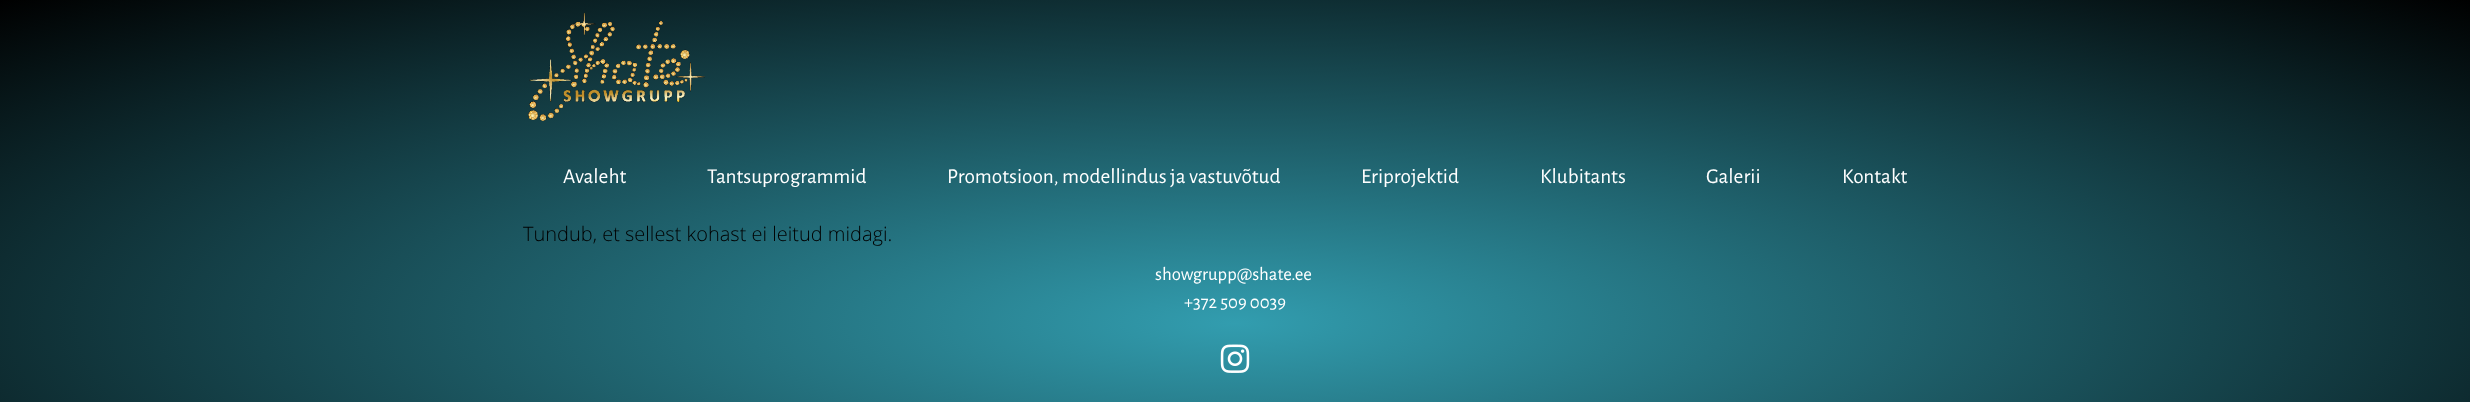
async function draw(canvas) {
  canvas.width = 2470;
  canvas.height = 402;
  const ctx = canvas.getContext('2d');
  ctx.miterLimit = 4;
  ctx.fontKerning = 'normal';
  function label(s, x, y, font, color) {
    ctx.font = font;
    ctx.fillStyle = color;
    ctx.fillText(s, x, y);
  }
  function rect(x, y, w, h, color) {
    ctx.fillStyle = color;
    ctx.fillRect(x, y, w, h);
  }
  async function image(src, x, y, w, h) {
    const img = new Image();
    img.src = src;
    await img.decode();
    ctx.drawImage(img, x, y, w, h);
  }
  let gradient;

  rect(0, 0, 2470, 402, '#fff');
  gradient = ctx.createRadialGradient(1235, 1234.75, 0, 1235, 1234.75, 1747);
  gradient.addColorStop(0, '#329daf');
  gradient.addColorStop(1, '#000');
  ctx.fillStyle = gradient;
  ctx.beginPath();
  ctx.rect(0, 0, 2470, 402);
  ctx.save();
  ctx.clip();
  ctx.scale(1, 457 / 1747);
  ctx.fillRect(0, 0, 2470, 1537);
  ctx.restore();
  await image('assets/img1.png', 528, 12, 177, 109);
  label('Avaleht', 563, 183, '21.25px Alegreya Sans', '#fff');
  label('Tantsuprogrammid', 707, 183, '21.25px Alegreya Sans', '#fff');
  label('Promotsioon, modellindus ja vastuvõtud', 947, 183, '21.25px Alegreya Sans', '#fff');
  label('Eriprojektid', 1361, 183, '21.25px Alegreya Sans', '#fff');
  label('Klubitants', 1540, 183, '21.25px Alegreya Sans', '#fff');
  label('Galerii', 1706, 183, '21.25px Alegreya Sans', '#fff');
  label('Kontakt', 1842, 183, '21.25px Alegreya Sans', '#fff');
  label('Tundub, et sellest kohast ei leitud midagi.', 523, 241, '300 20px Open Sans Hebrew', '#000');
  label('showgrupp@shate.ee', 1155, 280, '18.75px Alegreya Sans', '#fff');
  label('+372 509 0039', 1184, 308, '18.75px Alegreya Sans', '#fff');
  await image('assets/img2.png', 1220, 344, 30, 29);
}

draw(document.querySelector('canvas'));
